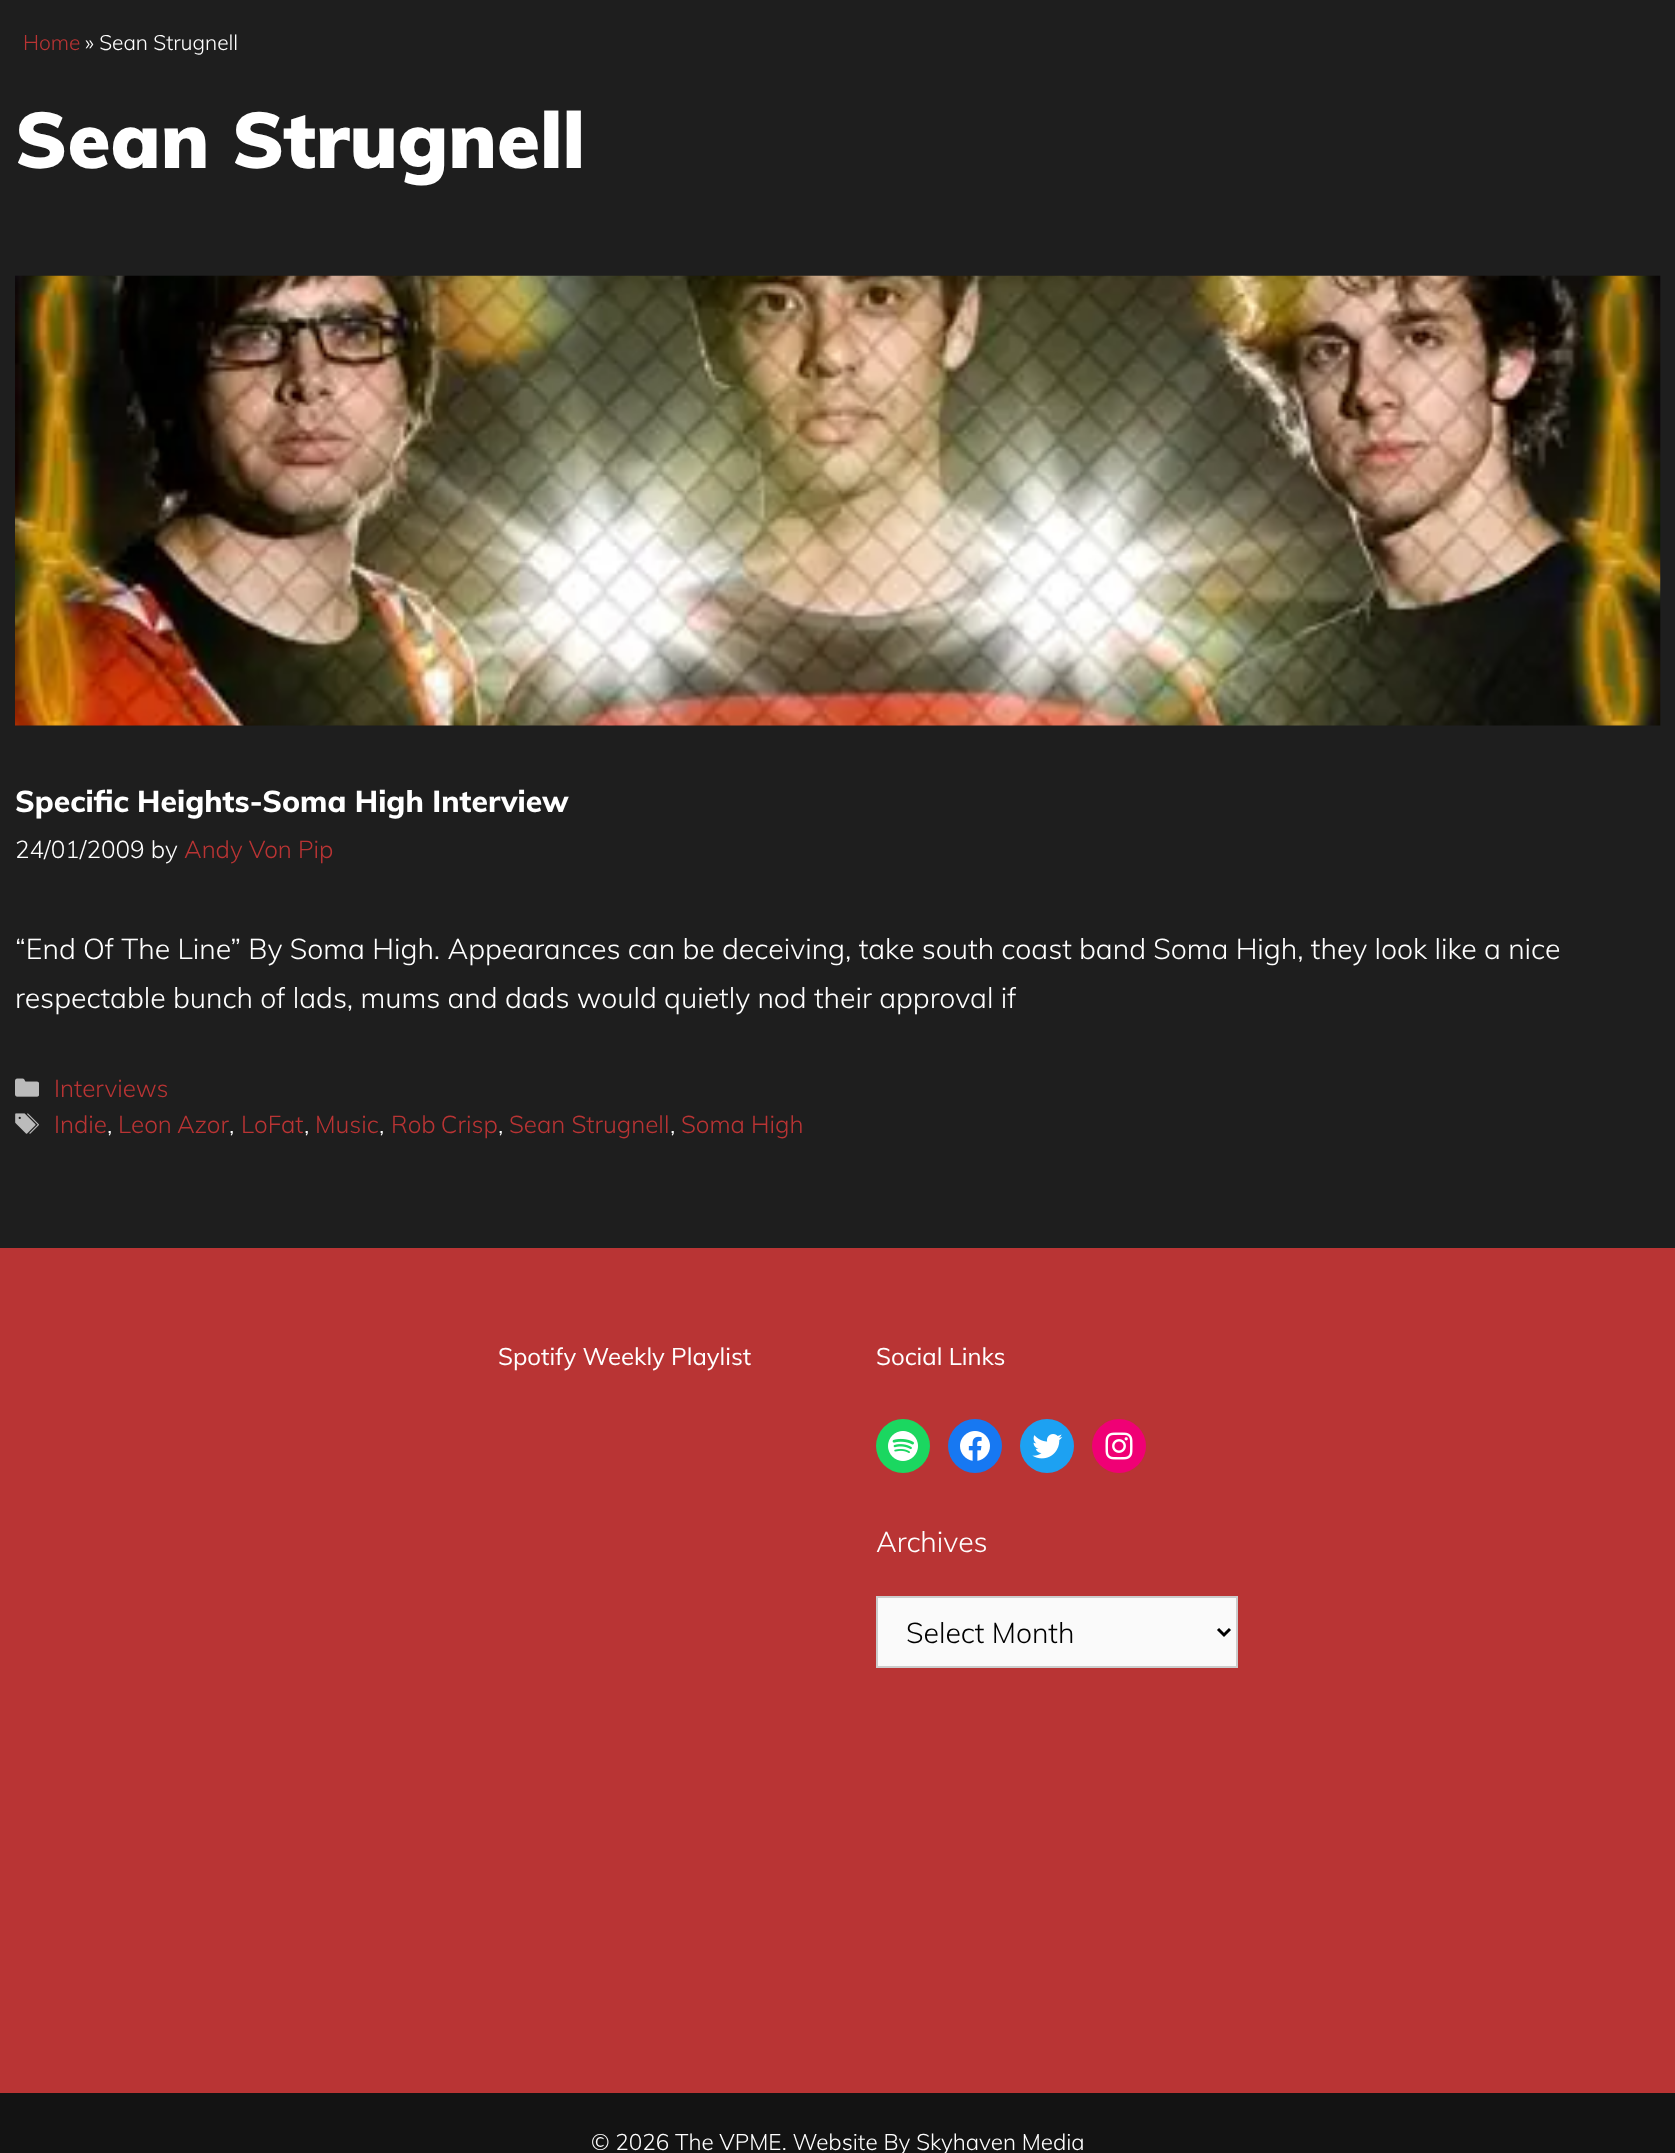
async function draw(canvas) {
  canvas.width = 1675;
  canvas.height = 2153;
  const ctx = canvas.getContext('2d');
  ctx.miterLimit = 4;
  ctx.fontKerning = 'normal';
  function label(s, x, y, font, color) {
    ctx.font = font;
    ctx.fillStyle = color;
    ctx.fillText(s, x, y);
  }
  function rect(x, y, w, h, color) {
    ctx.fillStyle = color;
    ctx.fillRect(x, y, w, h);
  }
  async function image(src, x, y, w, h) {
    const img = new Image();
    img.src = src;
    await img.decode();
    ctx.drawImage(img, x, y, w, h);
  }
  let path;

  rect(0, 0, 1675, 2153, '#1e1e1e');
  label('Home', 23, 50, '300 21px Muli', '#b93434');
  label('» Sean Strugnell', 85, 50, '300 21px Muli', '#fff');
  label('Sean Strugnell', 15, 168, '900 78px Muli', '#fff');
  await image('assets/img1.png', 15, 275, 1646, 451);
  label('Specific Heights-Soma High Interview', 15, 812, '800 30px Muli', '#fff');
  label('24/01/2009 by', 15, 858, '300 24.25px Muli', '#fff');
  label('Andy Von Pip', 184, 858, '300 24.25px Muli', '#b93434');
  label('“End Of The Line” By Soma High. Appearances can be deceiving, take south coast band Soma High, they look like a nice', 15, 959, '300 28.5px Muli', '#fff');
  label('respectable bunch of lads, mums and dads would quietly nod their approval if', 15, 1008, '300 28.5px Muli', '#fff');
  await image('assets/img2.png', 15, 1078, 24, 19);
  label('Interviews', 54, 1097, '300 24.25px Muli', '#b93434');
  await image('assets/img3.png', 15, 1113, 24, 21);
  label('Indie', 54, 1133, '300 24.25px Muli', '#b93434');
  label(',', 107, 1133, '300 24.25px Muli', '#fff');
  ctx.wordSpacing = '-1px';
  label('Leon Azor', 118, 1133, '300 24.25px Muli', '#b93434');
  ctx.wordSpacing = '0px';
  label(',', 229, 1133, '300 24.25px Muli', '#fff');
  label('LoFat', 241, 1133, '300 24.25px Muli', '#b93434');
  label(',', 304, 1133, '300 24.25px Muli', '#fff');
  label('Music', 315, 1133, '300 24.25px Muli', '#b93434');
  label(',', 379, 1133, '300 24.25px Muli', '#fff');
  ctx.wordSpacing = '-1px';
  label('Rob Crisp', 391, 1133, '300 24.25px Muli', '#b93434');
  ctx.wordSpacing = '0px';
  label(',', 498, 1133, '300 24.25px Muli', '#fff');
  label('Sean Strugnell', 509, 1133, '300 24.25px Muli', '#b93434');
  label(',', 670, 1133, '300 24.25px Muli', '#fff');
  label('Soma High', 681, 1133, '300 24.25px Muli', '#b93434');
  rect(0, 1248, 1675, 845, '#b93434');
  label('Spotify Weekly Playlist', 498, 1365, '24px Muli', '#fff');
  label('Social Links', 876, 1365, '24px Muli', '#fff');
  ctx.fillStyle = '#1bd760';
  ctx.beginPath();
  ctx.arc(903, 1446, 27, 0, 2 * Math.PI);
  ctx.fill();
  await image('assets/img4.png', 888, 1431, 30, 30);
  ctx.fillStyle = '#1778f2';
  ctx.beginPath();
  ctx.arc(975, 1446, 27, 0, 2 * Math.PI);
  ctx.fill();
  await image('assets/img5.png', 960, 1431, 30, 30);
  ctx.fillStyle = '#1da1f2';
  ctx.beginPath();
  ctx.arc(1047, 1446, 27, 0, 2 * Math.PI);
  ctx.fill();
  await image('assets/img6.png', 1032, 1434, 31, 25);
  ctx.fillStyle = '#f00075';
  ctx.beginPath();
  ctx.arc(1119, 1446, 27, 0, 2 * Math.PI);
  ctx.fill();
  await image('assets/img7.png', 1105, 1432, 28, 28);
  label('Archives', 876, 1552, '300 28.5px Muli', '#fff');
  ctx.fillStyle = '#fafafa';
  ctx.beginPath();
  ctx.rect(877, 1597, 360, 70);
  ctx.fill();
  ctx.strokeStyle = '#ccc';
  ctx.lineWidth = 2;
  ctx.stroke();
  path = new Path2D('M1218 1629L1224 1635L1230 1629');
  ctx.strokeStyle = '#000';
  ctx.lineWidth = 3;
  ctx.stroke(path);
  label('Select Month', 906, 1643, '300 28.5px Muli', '#000');
  rect(0, 2093, 1675, 60, '#131313');
  label('© 2026 The VPME. Website By Skyhaven Media', 591, 2150, '300 22.5px Muli', '#fff');
}

draw(document.querySelector('canvas'));
